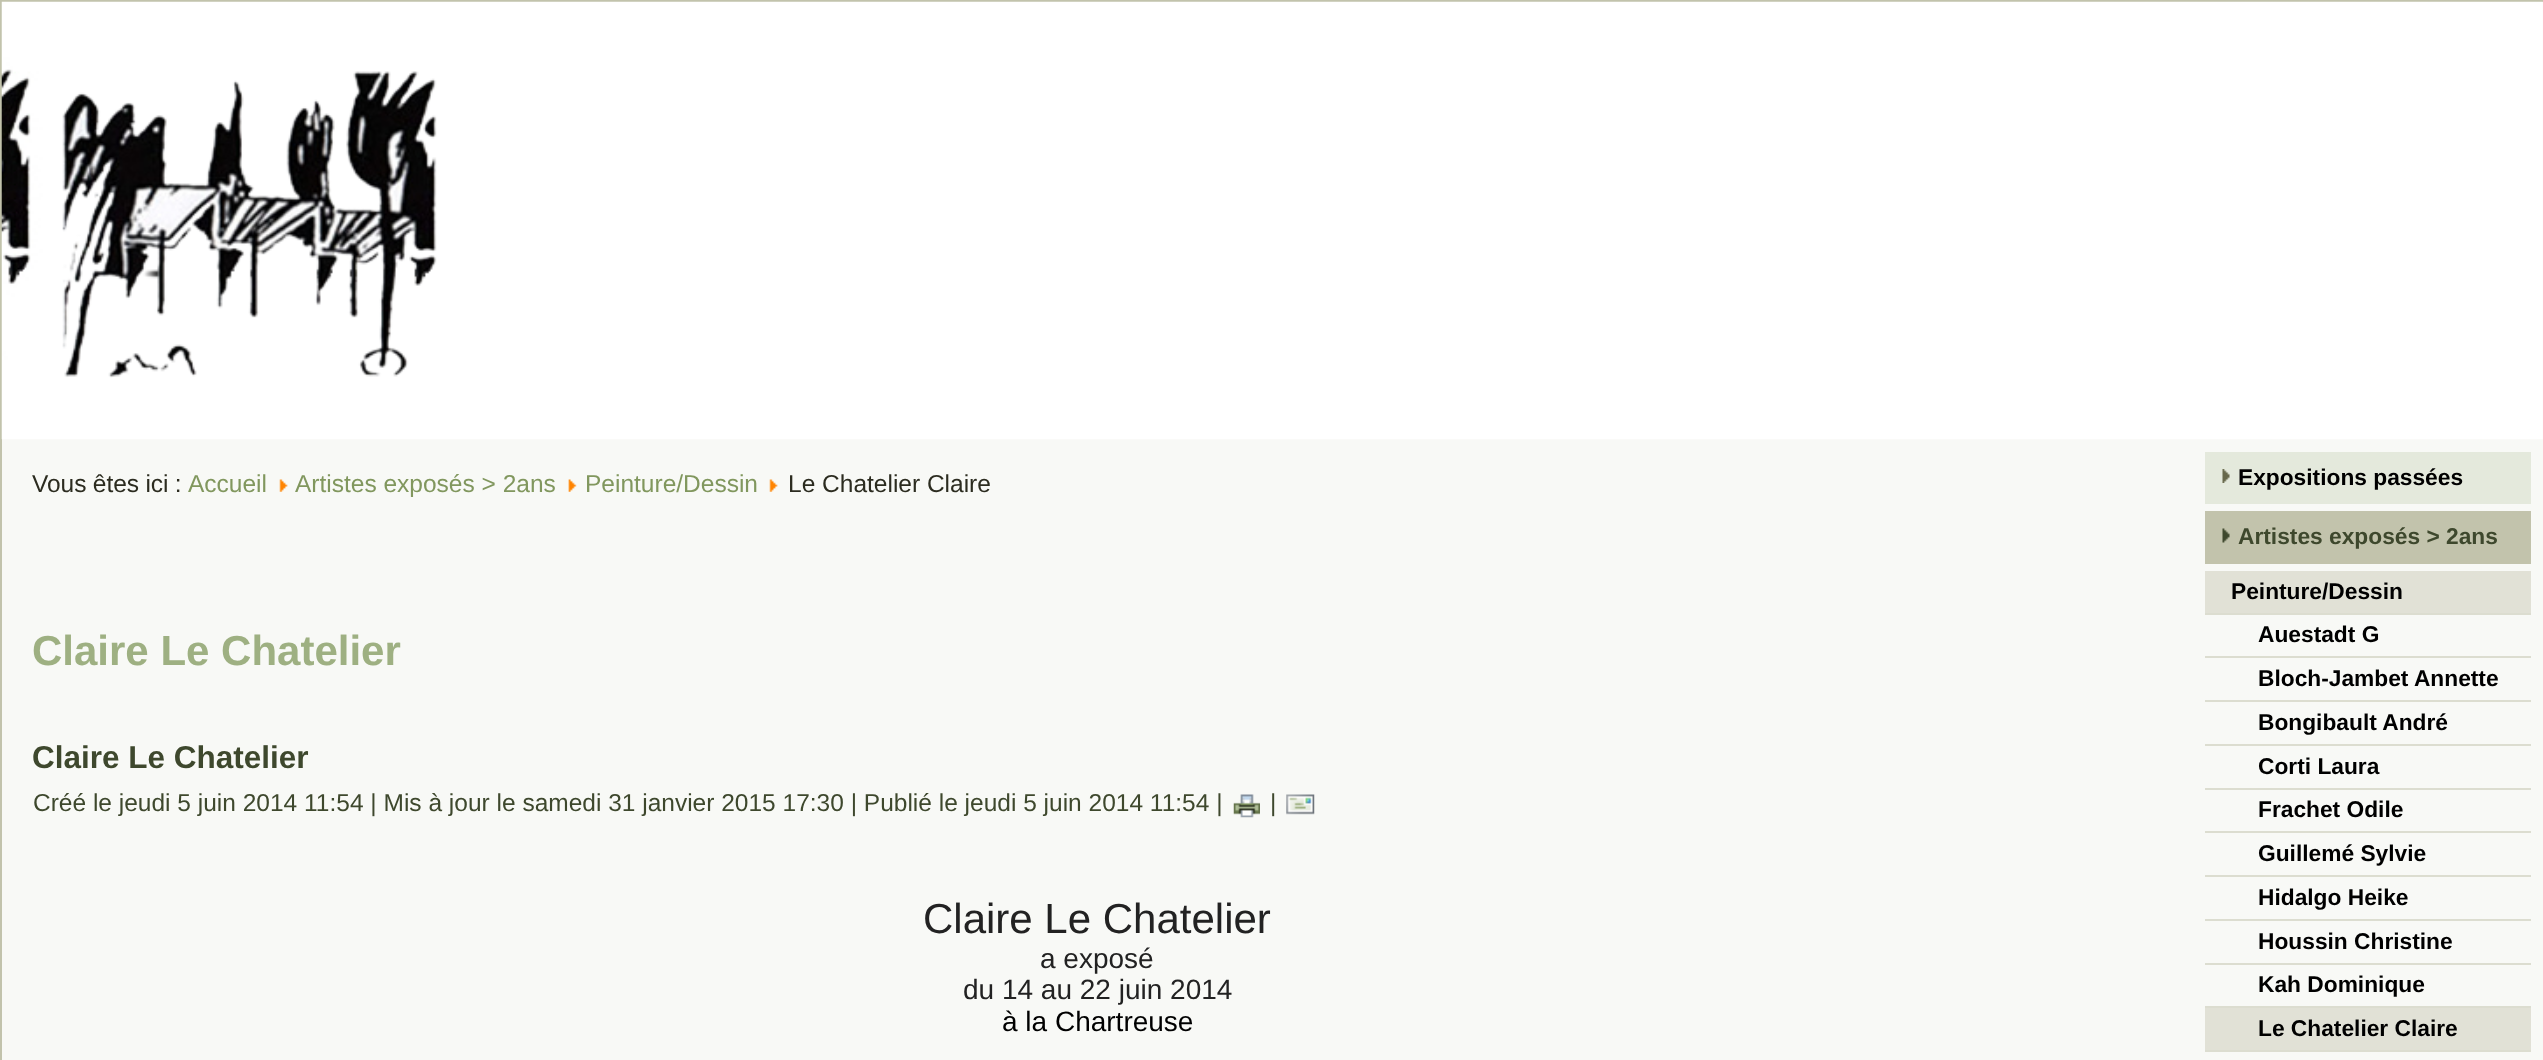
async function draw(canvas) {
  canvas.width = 2543;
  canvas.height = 1060;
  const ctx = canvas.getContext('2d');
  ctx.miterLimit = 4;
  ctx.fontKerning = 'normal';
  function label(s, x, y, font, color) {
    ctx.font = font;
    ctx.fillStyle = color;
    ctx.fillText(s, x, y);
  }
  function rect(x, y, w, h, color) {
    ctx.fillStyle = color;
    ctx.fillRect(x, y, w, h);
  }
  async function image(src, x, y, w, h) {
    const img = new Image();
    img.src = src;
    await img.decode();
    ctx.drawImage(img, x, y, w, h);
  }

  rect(0, 0, 2543, 1060, '#f8f9f6');
  ctx.strokeStyle = '#c2c3ac';
  ctx.lineWidth = 2;
  ctx.strokeRect(1, 1, 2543, 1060);
  await image('assets/img1.png', 1, 1, 2542, 439);
  await image('assets/img2.png', 62, 71, 375, 307);
  ctx.wordSpacing = '-0.5px';
  label('Vous êtes ici :', 32, 492, '24.5px Liberation Sans', '#2c2c20');
  ctx.wordSpacing = '0px';
  label('Accueil', 188, 492, '24.5px Liberation Sans', '#81975e');
  await image('assets/img3.png', 279, 479, 9, 13);
  label('Artistes exposés > 2ans', 295, 492, '24.5px Liberation Sans', '#81975e');
  await image('assets/img4.png', 568, 479, 9, 13);
  label('Peinture/Dessin', 585, 492, '24.5px Liberation Sans', '#81975e');
  await image('assets/img3.png', 769, 479, 9, 13);
  label('Le Chatelier Claire', 788, 492, '24.5px Liberation Sans', '#2c2c20');
  label('Claire Le Chatelier', 32, 665, 'bold 42px Liberation Sans', '#9eb082');
  label('Claire Le Chatelier', 32, 768, 'bold 31.5px Liberation Sans', '#3e482d');
  label('Créé le jeudi 5 juin 2014 11:54 | Mis à jour le samedi 31 janvier 2015 17:30 | Publié le jeudi 5 juin 2014 11:54 |', 33, 811, '24.5px Liberation Sans', '#3e482d');
  await image('assets/img5.png', 1233, 794, 27, 24);
  label('|', 1270, 811, '24.5px Liberation Sans', '#3e482d');
  await image('assets/img6.png', 1286, 794, 29, 21);
  label('Claire Le Chatelier', 923, 933, '42px Liberation Sans', '#222');
  label('a exposé', 1040, 968, '28px Liberation Sans', '#222');
  label('du 14 au 22 juin 2014', 963, 999, '28px Liberation Sans', '#222');
  label('à la Chartreuse', 1002, 1031, '28px Liberation Sans', '#000');
  rect(2205, 452, 326, 52, '#e4e9dc');
  await image('assets/img7.png', 2222, 469, 8, 14);
  label('Expositions passées', 2238, 485, 'bold 22.75px Liberation Sans', '#000');
  rect(2205, 511, 326, 53, '#c2c3ac');
  await image('assets/img8.png', 2222, 528, 8, 15);
  label('Artistes exposés > 2ans', 2238, 544, 'bold 22.75px Liberation Sans', '#3e482d');
  rect(2205, 571, 326, 42, '#e1e1d6');
  label('Peinture/Dessin', 2231, 599, 'bold 22.75px Liberation Sans', '#000');
  rect(2205, 613, 326, 2, '#dcddd0');
  label('Auestadt G', 2258, 642, 'bold 22.75px Liberation Sans', '#000');
  rect(2205, 656, 326, 2, '#dcddd0');
  label('Bloch-Jambet Annette', 2258, 686, 'bold 22.75px Liberation Sans', '#000');
  rect(2205, 700, 326, 2, '#dcddd0');
  label('Bongibault André', 2258, 730, 'bold 22.75px Liberation Sans', '#000');
  rect(2205, 744, 326, 2, '#dcddd0');
  label('Corti Laura', 2258, 774, 'bold 22.75px Liberation Sans', '#000');
  rect(2205, 788, 326, 2, '#dcddd0');
  label('Frachet Odile', 2258, 817, 'bold 22.75px Liberation Sans', '#000');
  rect(2205, 831, 326, 2, '#dcddd0');
  label('Guillemé Sylvie', 2258, 861, 'bold 22.75px Liberation Sans', '#000');
  rect(2205, 875, 326, 2, '#dcddd0');
  label('Hidalgo Heike', 2258, 905, 'bold 22.75px Liberation Sans', '#000');
  rect(2205, 919, 326, 2, '#dcddd0');
  label('Houssin Christine', 2258, 949, 'bold 22.75px Liberation Sans', '#000');
  rect(2205, 963, 326, 2, '#dcddd0');
  label('Kah Dominique', 2258, 992, 'bold 22.75px Liberation Sans', '#000');
  rect(2205, 1006, 326, 2, '#dcddd0');
  rect(2205, 1008, 326, 42, '#e1e1d6');
  label('Le Chatelier Claire', 2258, 1036, 'bold 22.75px Liberation Sans', '#000');
  rect(2205, 1050, 326, 2, '#dcddd0');
}

draw(document.querySelector('canvas'));
